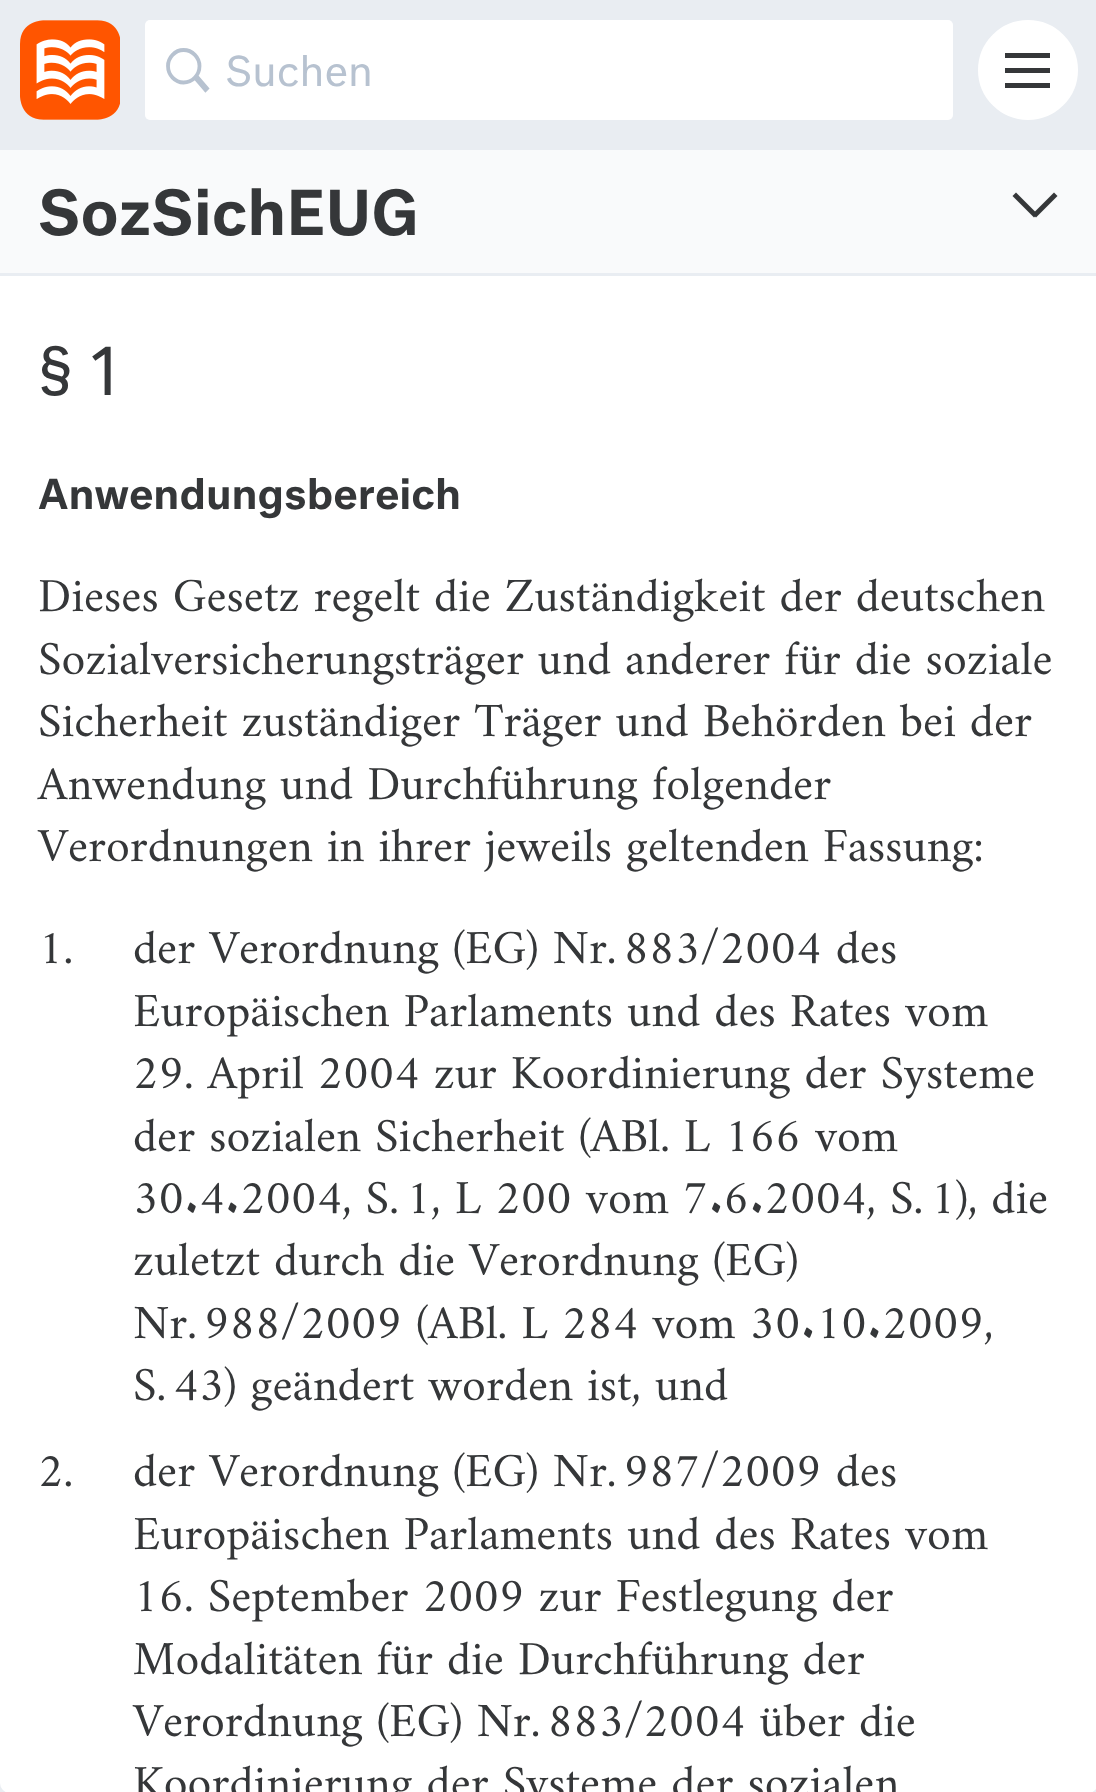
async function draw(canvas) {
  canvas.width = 1096;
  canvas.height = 1792;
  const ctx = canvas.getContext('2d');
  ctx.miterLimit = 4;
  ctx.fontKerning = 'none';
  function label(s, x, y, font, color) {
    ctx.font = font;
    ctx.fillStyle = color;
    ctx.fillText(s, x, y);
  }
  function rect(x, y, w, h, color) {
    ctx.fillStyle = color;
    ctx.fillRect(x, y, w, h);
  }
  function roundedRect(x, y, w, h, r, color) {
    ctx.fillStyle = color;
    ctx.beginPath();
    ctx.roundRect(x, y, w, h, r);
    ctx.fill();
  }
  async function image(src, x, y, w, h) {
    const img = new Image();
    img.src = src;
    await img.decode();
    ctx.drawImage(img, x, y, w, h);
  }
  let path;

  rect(0, 0, 1096, 1792, '#e9edf2');
  await image('assets/img1.png', 20, 20, 100, 100);
  roundedRect(145, 20, 808, 100, 5, '#fff');
  path = new Path2D('M194 76.5L205.5 90L207 88.5L195.5 75M183.5 82.5C192.5 82.5 199.5 75 199.5 66C199.5 57.5 192.5 50 183.5 50C175 50 168 57.5 168 66C168 75 175 82.5 183.5 82.5Z');
  ctx.strokeStyle = '#b7c2d0';
  ctx.lineWidth = 3.8;
  ctx.stroke(path);
  label('Suchen', 225, 86, '40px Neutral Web', '#b7c2d0');
  ctx.fillStyle = '#fff';
  ctx.beginPath();
  ctx.arc(1028, 70, 48.5, 0, 2 * Math.PI);
  ctx.fill();
  ctx.strokeStyle = '#fff';
  ctx.lineWidth = 3;
  ctx.stroke();
  rect(1005, 83, 45, 5, '#353739');
  rect(1005, 68, 45, 5, '#353739');
  rect(1005, 53, 45, 5, '#353739');
  roundedRect(0, 150, 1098, 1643, 10, '#fff');
  rect(0, 150, 1096, 123, '#f9fafb');
  rect(0, 273, 1096, 3, '#e9edf2');
  label('SozSichEUG', 38, 235, '500 60px Neutral Web', '#353739');
  path = new Path2D('M1016 192.5L1037.5 214L1034 217.5L1012.5 196Z');
  ctx.fill(path);
  path = new Path2D('M1032.5 214L1054 192.5L1057.5 196L1036 217.5Z');
  ctx.fill(path);
  label('§ 1', 38, 395, '64px Neutral Web', '#353739');
  label('Anwendungsbereich', 38, 509, '500 40px Neutral Web', '#353739');
  label('Dieses Gesetz regelt die Zuständigkeit der deutschen', 38, 611, '48px Amiri', '#353739');
  label('Sozialversicherungsträger und anderer für die soziale', 38, 674, '48px Amiri', '#353739');
  label('Sicherheit zuständiger Träger und Behörden bei der', 38, 736, '48px Amiri', '#353739');
  label('Anwendung und Durchführung folgender', 38, 799, '48px Amiri', '#353739');
  label('Verordnungen in ihrer jeweils geltenden Fassung:', 38, 861, '48px Amiri', '#353739');
  label('1.', 38, 963, '48px Amiri', '#353739');
  label('der Verordnung (EG) Nr. 883/2004 des', 133, 963, '48px Amiri', '#353739');
  label('Europäischen Parlaments und des Rates vom', 133, 1026, '48px Amiri', '#353739');
  label('29. April 2004 zur Koordinierung der Systeme', 133, 1088, '48px Amiri', '#353739');
  label('der sozialen Sicherheit (ABl. L 166 vom', 133, 1151, '48px Amiri', '#353739');
  label('30.4.2004, S. 1, L 200 vom 7.6.2004, S. 1), die', 133, 1213, '48px Amiri', '#353739');
  label('zuletzt durch die Verordnung (EG)', 133, 1275, '48px Amiri', '#353739');
  label('Nr. 988/2009 (ABl. L 284 vom 30.10.2009,', 133, 1338, '48px Amiri', '#353739');
  label('S. 43) geändert worden ist, und', 133, 1400, '48px Amiri', '#353739');
  label('2.', 38, 1486, '48px Amiri', '#353739');
  label('der Verordnung (EG) Nr. 987/2009 des', 133, 1486, '48px Amiri', '#353739');
  label('Europäischen Parlaments und des Rates vom', 133, 1549, '48px Amiri', '#353739');
  label('16. September 2009 zur Festlegung der', 133, 1611, '48px Amiri', '#353739');
  label('Modalitäten für die Durchführung der', 133, 1674, '48px Amiri', '#353739');
  label('Verordnung (EG) Nr. 883/2004 über die', 133, 1736, '48px Amiri', '#353739');
  label('Koordinierung der Systeme der sozialen', 133, 1798, '48px Amiri', '#353739');
}

draw(document.querySelector('canvas'));
